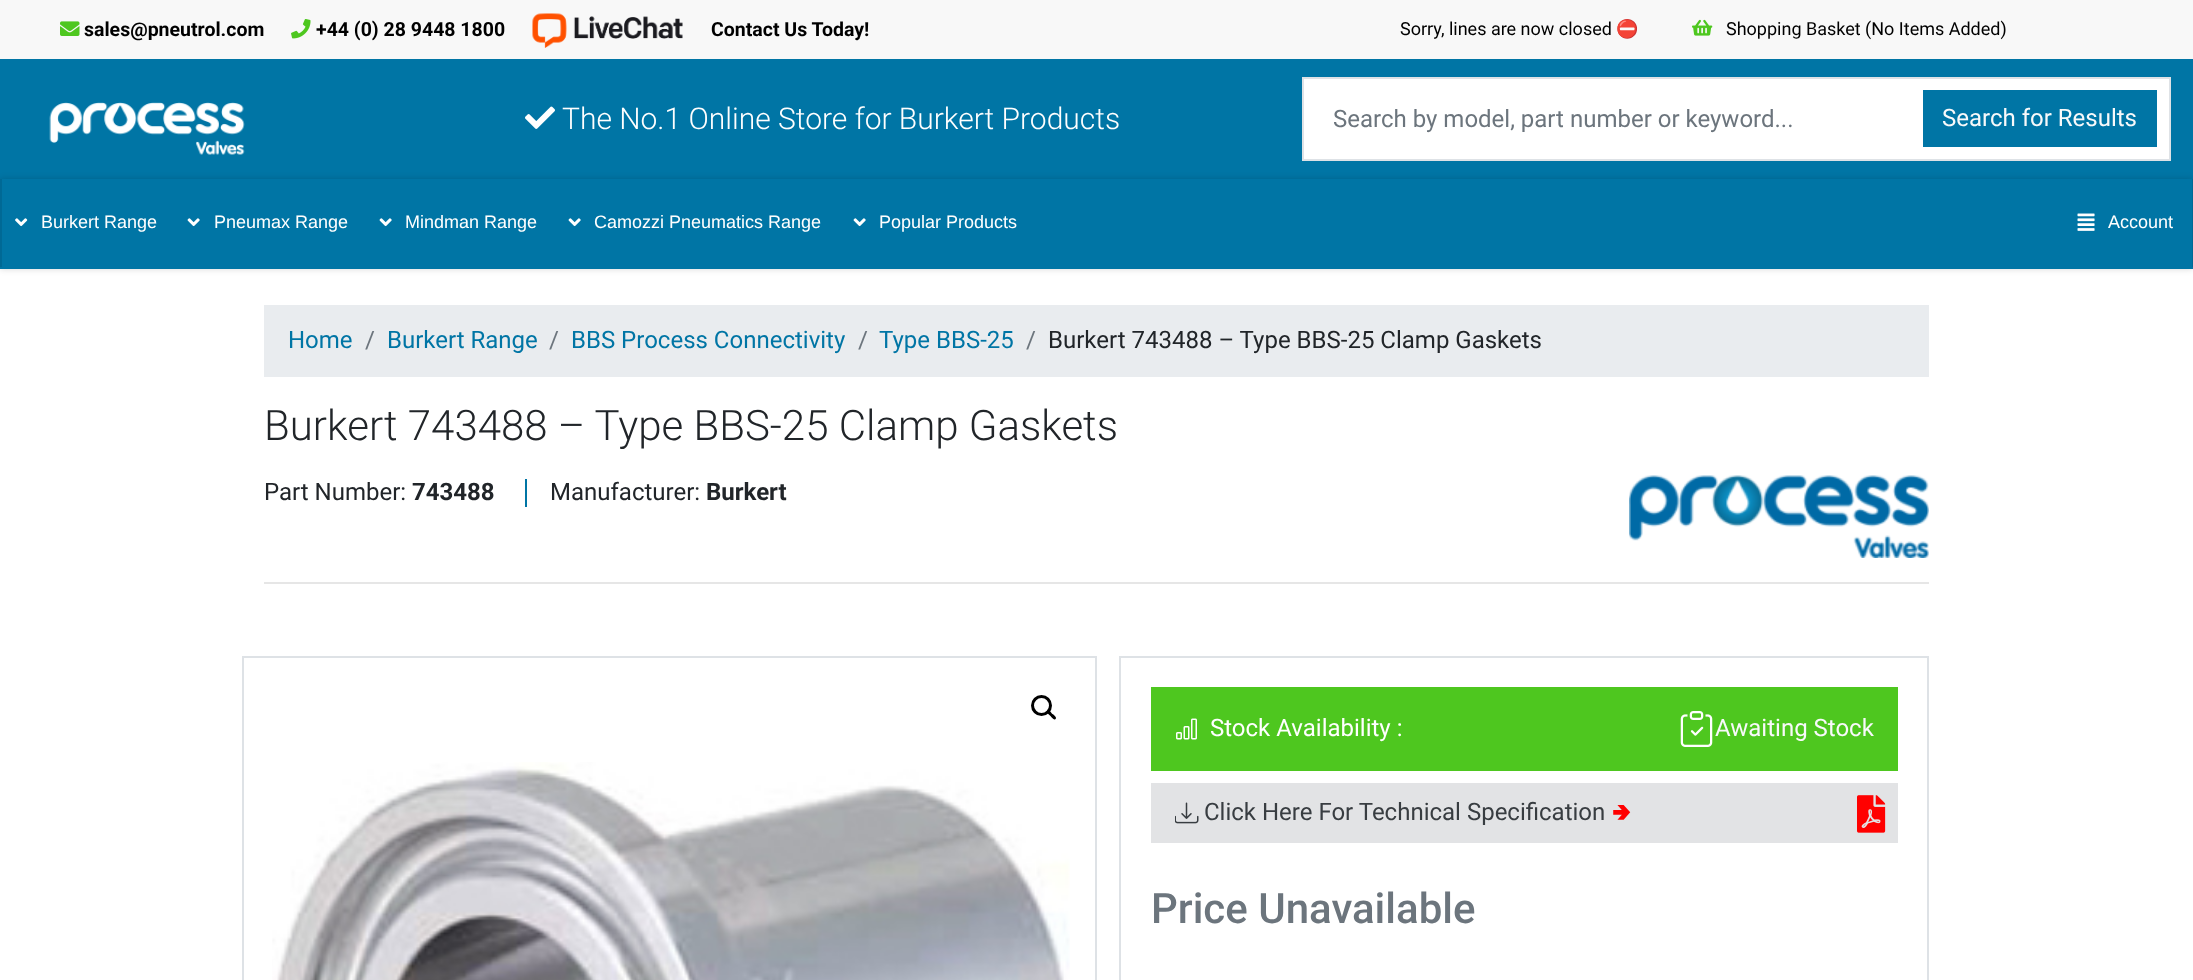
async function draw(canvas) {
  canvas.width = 2193;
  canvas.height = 980;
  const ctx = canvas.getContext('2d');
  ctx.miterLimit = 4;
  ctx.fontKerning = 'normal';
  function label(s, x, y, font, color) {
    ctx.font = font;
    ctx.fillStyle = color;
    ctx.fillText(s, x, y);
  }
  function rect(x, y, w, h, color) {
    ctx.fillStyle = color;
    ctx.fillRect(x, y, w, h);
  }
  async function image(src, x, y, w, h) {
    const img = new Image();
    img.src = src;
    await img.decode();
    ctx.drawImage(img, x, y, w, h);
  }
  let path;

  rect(0, 0, 2193, 980, '#fff');
  rect(0, 0, 2193, 59, '#f8f8f8');
  await image('assets/img1.png', 60, 21, 20, 15);
  label('sales@pneutrol.com', 84, 36, 'bold 19.5px Roboto', '#000');
  await image('assets/img2.png', 291, 19, 20, 20);
  label('+44 (0) 28 9448 1800', 316, 36, 'bold 19.5px Roboto', '#000');
  await image('assets/img3.png', 532, 13, 151, 35);
  label('Contact Us Today!', 711, 36, 'bold 19.5px Roboto', '#000');
  label('Sorry, lines are now closed', 1400, 35, '18px Roboto', '#000');
  label('⛔️', 1616, 35, '18px Noto Color Emoji', '#000');
  await image('assets/img4.png', 1692, 19, 21, 17);
  label('Shopping Basket (No Items Added)', 1726, 35, '18px Roboto', '#000');
  rect(0, 59, 2193, 120, '#0075a5');
  await image('assets/img5.png', 49, 102, 196, 53);
  await image('assets/img6.png', 525, 106, 30, 23);
  label('The No.1 Online Store for Burkert Products', 562, 129, '300 30px Roboto', '#fff');
  ctx.beginPath();
  ctx.rect(1303, 78, 867, 82);
  ctx.fill();
  ctx.strokeStyle = '#dee2e6';
  ctx.lineWidth = 2;
  ctx.stroke();
  label('Search by model, part number or keyword...', 1333, 127, '24px Roboto', '#6c757d');
  rect(1923, 90, 234, 57, '#0075a5');
  label('Search for Results', 1942, 126, '24px Roboto', '#f8f9fa');
  ctx.fillStyle = '#00000029';
  ctx.filter = 'blur(3px)';
  ctx.beginPath();
  ctx.rect(0, 179, 2193, 90);
  ctx.fill();
  ctx.filter = 'none';
  rect(0, 179, 2193, 90, '#0075a5');
  rect(2192, 179, 1, 88, '#006995');
  rect(0, 179, 2, 88, '#006995');
  await image('assets/img7.png', 15, 218, 13, 9);
  label('Burkert Range', 41, 228, '18px Liberation Sans', '#fff');
  await image('assets/img8.png', 187, 218, 13, 9);
  label('Pneumax Range', 214, 228, '18px Liberation Sans', '#fff');
  await image('assets/img8.png', 379, 218, 13, 9);
  label('Mindman Range', 405, 228, '18px Liberation Sans', '#fff');
  await image('assets/img8.png', 568, 218, 13, 9);
  label('Camozzi Pneumatics Range', 594, 228, '18px Liberation Sans', '#fff');
  await image('assets/img8.png', 853, 218, 13, 9);
  label('Popular Products', 879, 228, '18px Liberation Sans', '#fff');
  await image('assets/img9.png', 2077, 213, 18, 18);
  label('Account', 2108, 228, '18px Liberation Sans', '#fff');
  rect(264, 305, 1665, 72, '#e9ecef');
  label('Home', 288, 348, '24px Roboto', '#0075a5');
  label('/', 365, 348, '24px Roboto', '#6c757d');
  label('Burkert Range', 387, 348, '24px Roboto', '#0075a5');
  label('/', 549, 348, '24px Roboto', '#6c757d');
  label('BBS Process Connectivity', 571, 348, '24px Roboto', '#0075a5');
  label('/', 858, 348, '24px Roboto', '#6c757d');
  label('Type BBS-25', 879, 348, '24px Roboto', '#0075a5');
  label('/', 1026, 348, '24px Roboto', '#6c757d');
  label('Burkert 743488 – Type BBS-25 Clamp Gaskets', 1048, 348, '24px Roboto', '#212529');
  label('Burkert 743488 – Type BBS-25 Clamp Gaskets', 264, 440, '300 42px Roboto', '#212529');
  label('Part Number:', 264, 500, '24px Roboto', '#212529');
  label('743488', 412, 500, 'bold 24px Roboto', '#212529');
  label('Manufacturer:', 550, 500, '24px Roboto', '#212529');
  rect(525, 479, 2, 28, '#0075a5');
  label('Burkert', 706, 500, 'bold 24px Roboto', '#212529');
  await image('assets/img10.png', 1629, 475, 300, 83);
  rect(264, 582, 1665, 2, '#e6e6e6');
  ctx.strokeRect(243, 657, 853, 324);
  ctx.beginPath();
  ctx.arc(1041.5, 705.5, 9, 0, 2 * Math.PI);
  ctx.strokeStyle = '#000';
  ctx.lineWidth = 3;
  ctx.stroke();
  ctx.fillStyle = '#000';
  path = new Path2D('M1047.5 710.5C1049 709 1051.5 713 1052.5 714C1053.5 714.5 1057.5 717.5 1055.5 719C1054 721 1051.5 717 1050.5 716C1049.5 715 1045.5 712.5 1047.5 710.5Z');
  ctx.fill(path);
  await image('assets/img11.png', 272, 762, 798, 218);
  ctx.strokeStyle = '#dee2e6';
  ctx.lineWidth = 2;
  ctx.strokeRect(1120, 657, 808, 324);
  rect(1151, 687, 747, 84, '#4ec71f');
  await image('assets/img12.png', 1176, 718, 21, 22);
  label('Stock Availability :', 1210, 736, '24px Roboto', '#fff');
  await image('assets/img13.png', 1680, 711, 33, 36);
  label('Awaiting Stock', 1715, 736, '24px Roboto', '#f8f9fa');
  rect(1151, 783, 747, 60, '#e2e3e5');
  await image('assets/img14.png', 1175, 802, 24, 22);
  label('Click Here For Technical Specification', 1204, 820, '24px Roboto', '#383d41');
  label('🢂', 1612, 820, '24px "Noto Sans Symbols 2"', '#f00');
  await image('assets/img15.png', 1857, 795, 29, 38);
  label('Price Unavailable', 1151, 923, '500 42px Roboto', '#6c757d');
}

draw(document.querySelector('canvas'));
